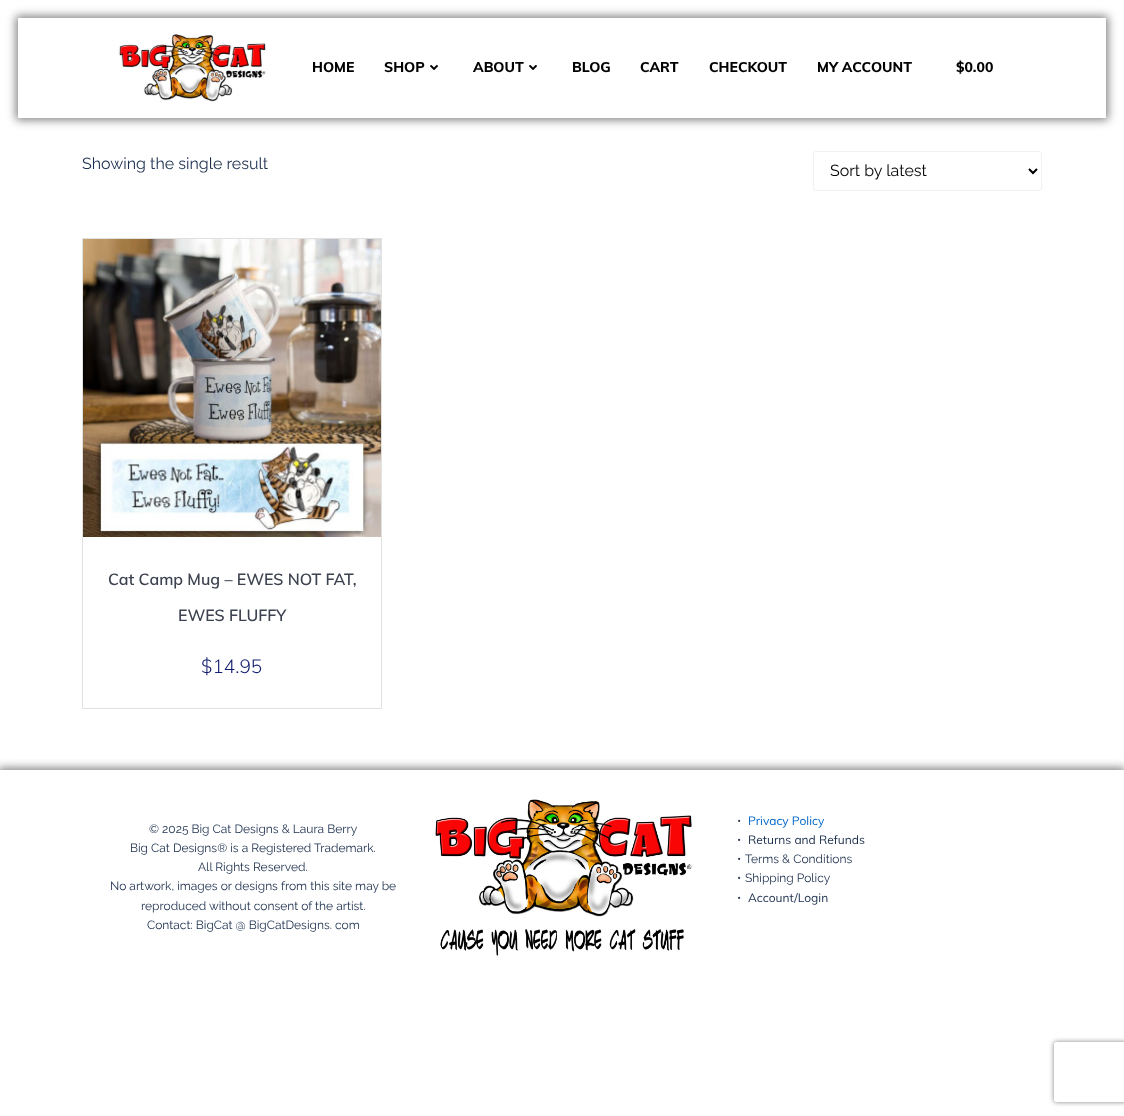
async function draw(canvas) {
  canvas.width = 1124;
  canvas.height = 1116;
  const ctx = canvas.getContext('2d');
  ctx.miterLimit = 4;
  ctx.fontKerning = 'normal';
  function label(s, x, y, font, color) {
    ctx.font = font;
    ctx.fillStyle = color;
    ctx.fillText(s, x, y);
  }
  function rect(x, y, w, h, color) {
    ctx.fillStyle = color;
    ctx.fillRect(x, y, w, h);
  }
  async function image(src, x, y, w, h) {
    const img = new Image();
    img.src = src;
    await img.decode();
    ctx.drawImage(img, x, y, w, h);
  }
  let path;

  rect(0, 0, 1124, 1116, '#fff');
  ctx.fillStyle = '#00000080';
  ctx.filter = 'blur(5px)';
  ctx.beginPath();
  ctx.rect(16, 16, 1092, 104);
  ctx.fill();
  ctx.filter = 'none';
  rect(18, 18, 1088, 100, '#fff');
  await image('assets/img1.png', 118, 34, 148, 68);
  label('HOME', 312, 72, '800 14px Muli', '#000');
  label('SHOP', 384, 72, '800 14px Muli', '#000');
  await image('assets/img2.png', 430, 65, 8, 5);
  label('ABOUT', 473, 72, '800 14px Muli', '#000');
  await image('assets/img2.png', 529, 65, 8, 5);
  label('BLOG', 572, 72, '800 14px Muli', '#000');
  label('CART', 640, 72, '800 14px Muli', '#000');
  label('CHECKOUT', 709, 72, '800 14px Muli', '#000');
  label('MY ACCOUNT', 817, 72, '800 14px Muli', '#000');
  label('$0.00', 956, 72, '800 14px Muli', '#000');
  label('Showing the single result', 82, 169, '16px Raleway', '#1b2e4d');
  ctx.beginPath();
  ctx.roundRect(813.5, 151.5, 228, 39, 2.5);
  ctx.strokeStyle = '#f1f1f1';
  ctx.stroke();
  path = new Path2D('M1029 169L1033 173L1037 169');
  ctx.strokeStyle = '#000';
  ctx.lineWidth = 2;
  ctx.stroke(path);
  label('Sort by latest', 830, 176, '16px Raleway', '#000');
  ctx.strokeStyle = '#e0e1e1';
  ctx.lineWidth = 1;
  ctx.strokeRect(82.5, 238.5, 299, 470);
  await image('assets/img3.png', 83, 239, 298, 298);
  label('Cat Camp Mug – EWES NOT FAT,', 108, 585, '600 16px Muli', '#3c424f');
  label('EWES FLUFFY', 178, 621, '600 16px Muli', '#3c424f');
  label('$14.95', 201, 673, '300 19px Muli', '#141e70');
  ctx.save();
  ctx.beginPath();
  ctx.rect(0, 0, 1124, 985);
  ctx.clip();
  ctx.beginPath();
  ctx.rect(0, 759, 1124, 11);
  ctx.clip();
  ctx.fillStyle = '#00000080';
  ctx.filter = 'blur(5px)';
  ctx.beginPath();
  ctx.rect(-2, 768, 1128, 219);
  ctx.fill();
  ctx.filter = 'none';
  ctx.restore();
  label('© 2025 Big Cat Designs & Laura Berry', 149, 833, '12px Raleway', '#1b2e4d');
  label('Big Cat Designs® is a Registered Trademark.', 130, 852, '12px Raleway', '#1b2e4d');
  label('All Rights Reserved.', 198, 871, '12px Raleway', '#1b2e4d');
  label('No artwork, images or designs from this site may be', 110, 890, '12px Raleway', '#1b2e4d');
  label('reproduced without consent of the artist.', 141, 910, '12px Raleway', '#1b2e4d');
  label('Contact: BigCat @ BigCatDesigns. com', 147, 929, '12px Raleway', '#1b2e4d');
  await image('assets/img4.png', 435, 799, 257, 157);
  label('•', 737, 825, '12px Raleway', '#1b2e4d');
  label('Privacy Policy', 748, 825, '12px Muli', '#06c');
  label('•', 737, 844, '12px Raleway', '#1b2e4d');
  label('Returns and Refunds', 748, 844, '12px Muli', '#1b2e4d');
  label('•', 737, 863, '12px Raleway', '#1b2e4d');
  label('Terms & Conditions', 745, 863, '12px Raleway', '#1b2e4d');
  label('•', 737, 882, '12px Raleway', '#1b2e4d');
  label('Shipping Policy', 745, 882, '12px Raleway', '#1b2e4d');
  label('•', 737, 902, '12px Raleway', '#1b2e4d');
  label('Account/Login', 748, 902, '12px Muli', '#1b2e4d');
  ctx.save();
  path = new Path2D('M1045 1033H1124V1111H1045ZM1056 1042H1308C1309 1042 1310 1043 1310 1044V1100C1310 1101 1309 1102 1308 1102H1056C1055 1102 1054 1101 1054 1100V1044C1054 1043 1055 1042 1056 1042Z');
  ctx.clip(path, 'evenodd');
  ctx.fillStyle = '#808080';
  ctx.filter = 'blur(2.5px)';
  ctx.beginPath();
  ctx.roundRect(1054, 1042, 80, 60, 2);
  ctx.fill();
  ctx.filter = 'none';
  ctx.restore();
}

draw(document.querySelector('canvas'));
